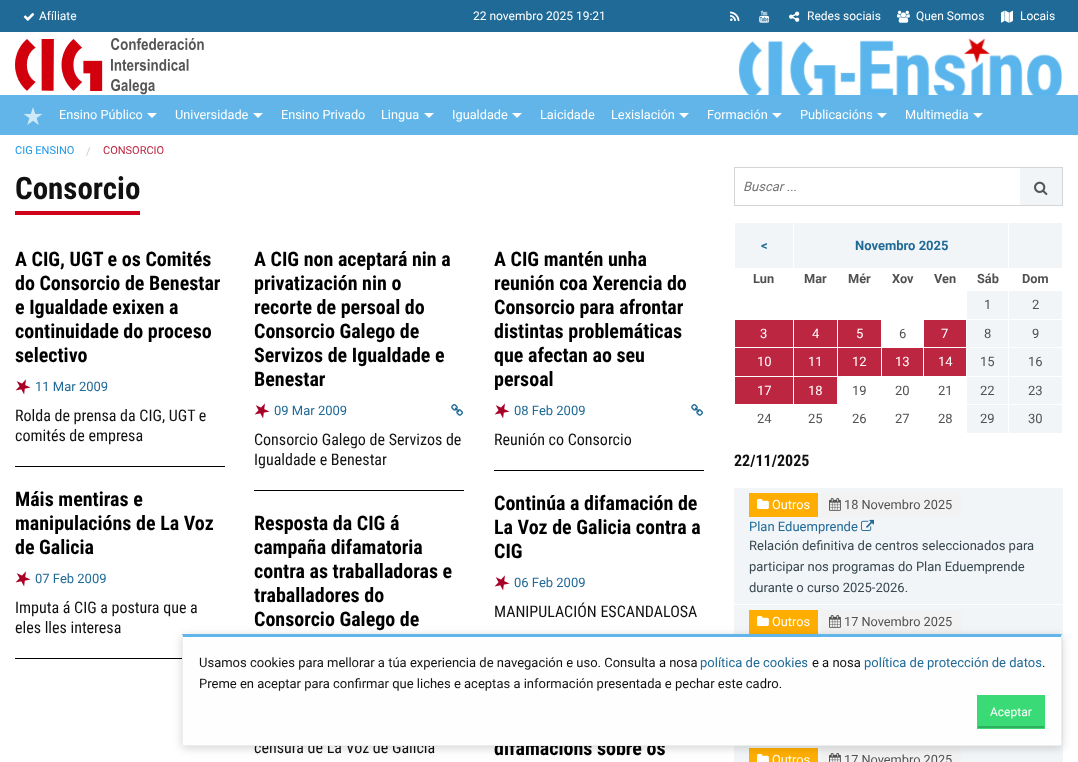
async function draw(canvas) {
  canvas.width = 1078;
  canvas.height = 762;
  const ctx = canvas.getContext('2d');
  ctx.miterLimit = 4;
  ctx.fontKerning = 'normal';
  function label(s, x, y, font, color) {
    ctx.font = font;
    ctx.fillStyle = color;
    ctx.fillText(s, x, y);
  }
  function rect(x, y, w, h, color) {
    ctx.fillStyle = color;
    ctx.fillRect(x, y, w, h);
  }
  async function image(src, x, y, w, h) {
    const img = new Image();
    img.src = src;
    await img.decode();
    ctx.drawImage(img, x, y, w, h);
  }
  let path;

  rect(0, 0, 1078, 762, '#fff');
  rect(0, 0, 1078, 32, '#206a97');
  await image('assets/img1.png', 23, 13, 12, 8);
  label('Afíliate', 39, 20, '12px Roboto', '#fff');
  label('22 novembro 2025 19:21', 473, 20, '12px Roboto', '#fff');
  await image('assets/img2.png', 730, 11, 10, 10);
  await image('assets/img3.png', 759, 10, 11, 13);
  await image('assets/img4.png', 789, 11, 11, 11);
  label('Redes sociais', 807, 20, '12px Roboto', '#fff');
  await image('assets/img5.png', 897, 10, 13, 13);
  label('Quen Somos', 916, 20, '12px Roboto', '#fff');
  await image('assets/img6.png', 1001, 10, 12, 13);
  label('Locais', 1020, 20, '12px Roboto', '#fff');
  await image('assets/img7.png', 15, 38, 189, 57);
  await image('assets/img8.png', 738, 38, 324, 57);
  rect(0, 95, 1078, 40, '#61b5e8');
  await image('assets/img9.png', 23, 107, 20, 18);
  label('Ensino Público', 59, 119, '12.75px Roboto', '#fff');
  path = new Path2D('M147 113H157L152 118Z');
  ctx.fill(path);
  label('Universidade', 175, 119, '12.75px Roboto', '#fff');
  path = new Path2D('M253 113H263L258 118Z');
  ctx.fill(path);
  label('Ensino Privado', 281, 119, '12.75px Roboto', '#fff');
  label('Lingua', 381, 119, '12.75px Roboto', '#fff');
  path = new Path2D('M424 113H434L429 118Z');
  ctx.fill(path);
  label('Igualdade', 452, 119, '12.75px Roboto', '#fff');
  path = new Path2D('M512 113H522L517 118Z');
  ctx.fill(path);
  label('Laicidade', 540, 119, '12.75px Roboto', '#fff');
  label('Lexislación', 611, 119, '12.75px Roboto', '#fff');
  path = new Path2D('M679 113H689L684 118Z');
  ctx.fill(path);
  label('Formación', 707, 119, '12.75px Roboto', '#fff');
  path = new Path2D('M772 113H782L777 118Z');
  ctx.fill(path);
  label('Publicacións', 800, 119, '12.75px Roboto', '#fff');
  path = new Path2D('M877 113H887L882 118Z');
  ctx.fill(path);
  label('Multimedia', 905, 119, '12.75px Roboto', '#fff');
  path = new Path2D('M973 113H983L978 118Z');
  ctx.fill(path);
  label('CIG ENSINO', 15, 154, '11px Roboto', '#2199e8');
  label('/', 86, 155, '11px Roboto', '#cacaca');
  label('CONSORCIO', 103, 154, '11px Roboto', '#bc2640');
  rect(15, 211, 125, 4, '#d0021b');
  label('Consorcio', 15, 199, 'bold 31px Roboto Condensed', '#111');
  label('A CIG, UGT e os Comités', 15, 266, 'bold 20px Roboto Condensed', '#000');
  label('do Consorcio de Benestar', 15, 290, 'bold 20px Roboto Condensed', '#000');
  label('e Igualdade exixen a', 15, 314, 'bold 20px Roboto Condensed', '#000');
  label('continuidade do proceso', 15, 338, 'bold 20px Roboto Condensed', '#000');
  label('selectivo', 15, 362, 'bold 20px Roboto Condensed', '#000');
  await image('assets/img10.png', 15, 379, 16, 16);
  label('11 Mar 2009', 35, 391, '13px Roboto', '#206a97');
  label('Rolda de prensa da CIG, UGT e', 15, 421, '16px Roboto Condensed', '#111');
  label('comités de empresa', 15, 441, '16px Roboto Condensed', '#111');
  rect(15, 466, 210, 1, '#000');
  label('A CIG non aceptará nin a', 254, 266, 'bold 20px Roboto Condensed', '#000');
  label('privatización nin o', 254, 290, 'bold 20px Roboto Condensed', '#000');
  label('recorte de persoal do', 254, 314, 'bold 20px Roboto Condensed', '#000');
  label('Consorcio Galego de', 254, 338, 'bold 20px Roboto Condensed', '#000');
  label('Servizos de Igualdade e', 254, 362, 'bold 20px Roboto Condensed', '#000');
  label('Benestar', 254, 386, 'bold 20px Roboto Condensed', '#000');
  await image('assets/img10.png', 254, 403, 16, 16);
  label('09 Mar 2009', 274, 415, '13px Roboto', '#206a97');
  await image('assets/img11.png', 451, 404, 12, 12);
  label('Consorcio Galego de Servizos de', 254, 445, '16px Roboto Condensed', '#111');
  label('Igualdade e Benestar', 254, 465, '16px Roboto Condensed', '#111');
  rect(254, 490, 210, 1, '#000');
  label('A CIG mantén unha', 494, 266, 'bold 20px Roboto Condensed', '#000');
  label('reunión coa Xerencia do', 494, 290, 'bold 20px Roboto Condensed', '#000');
  label('Consorcio para afrontar', 494, 314, 'bold 20px Roboto Condensed', '#000');
  label('distintas problemáticas', 494, 338, 'bold 20px Roboto Condensed', '#000');
  label('que afectan ao seu', 494, 362, 'bold 20px Roboto Condensed', '#000');
  label('persoal', 494, 386, 'bold 20px Roboto Condensed', '#000');
  await image('assets/img10.png', 494, 403, 16, 16);
  label('08 Feb 2009', 514, 415, '13px Roboto', '#206a97');
  await image('assets/img11.png', 691, 404, 12, 12);
  label('Reunión co Consorcio', 494, 445, '16px Roboto Condensed', '#111');
  rect(494, 470, 210, 1, '#000');
  label('Máis mentiras e', 15, 506, 'bold 20px Roboto Condensed', '#000');
  label('manipulacións de La Voz', 15, 530, 'bold 20px Roboto Condensed', '#000');
  label('de Galicia', 15, 554, 'bold 20px Roboto Condensed', '#000');
  await image('assets/img10.png', 15, 571, 16, 16);
  label('07 Feb 2009', 35, 583, '13px Roboto', '#206a97');
  label('Imputa á CIG a postura que a', 15, 613, '16px Roboto Condensed', '#111');
  label('eles lles interesa', 15, 633, '16px Roboto Condensed', '#111');
  rect(15, 658, 167, 1, '#000');
  label('Resposta da CIG á', 254, 530, 'bold 20px Roboto Condensed', '#000');
  label('campaña difamatoria', 254, 554, 'bold 20px Roboto Condensed', '#000');
  label('contra as traballadoras e', 254, 578, 'bold 20px Roboto Condensed', '#000');
  label('traballadores do', 254, 602, 'bold 20px Roboto Condensed', '#000');
  label('Consorcio Galego de', 254, 626, 'bold 20px Roboto Condensed', '#000');
  label('censura de La Voz de Galicia', 254, 753, '16px Roboto Condensed', '#111');
  label('Continúa a difamación de', 494, 510, 'bold 20px Roboto Condensed', '#000');
  label('La Voz de Galicia contra a', 494, 534, 'bold 20px Roboto Condensed', '#000');
  label('CIG', 494, 558, 'bold 20px Roboto Condensed', '#000');
  await image('assets/img10.png', 494, 575, 16, 16);
  label('06 Feb 2009', 514, 587, '13px Roboto', '#206a97');
  label('MANIPULACIÓN ESCANDALOSA', 494, 617, '16px Roboto Condensed', '#111');
  label('difamacións sobre os', 494, 755, 'bold 20px Roboto Condensed', '#000');
  rect(734, 167, 329, 1, '#d5d5d5');
  rect(734, 205, 286, 1, '#d5d5d5');
  rect(734, 167, 1, 39, '#d5d5d5');
  label('Buscar ...', 743, 191, 'italic 13px Roboto', '#757575');
  rect(1020, 168, 42, 37, '#f2f5f7');
  rect(1062, 167, 1, 39, '#d5d5d5');
  rect(1020, 205, 43, 1, '#d5d5d5');
  await image('assets/img12.png', 1034, 181, 14, 14);
  rect(735, 223, 58, 45, '#f2f5f7');
  label('<', 761, 250, 'bold 13px Roboto', '#206a97');
  rect(794, 223, 214, 45, '#f2f5f7');
  label('Novembro 2025', 855, 250, 'bold 13px Roboto', '#206a97');
  rect(1009, 223, 53, 45, '#f2f5f7');
  label('Lun', 753, 283, 'bold 12.75px Roboto', '#515151');
  label('Mar', 804, 283, 'bold 12.75px Roboto', '#515151');
  label('Mér', 848, 283, 'bold 12.75px Roboto', '#515151');
  label('Xov', 892, 283, 'bold 12.75px Roboto', '#515151');
  label('Ven', 934, 283, 'bold 12.75px Roboto', '#515151');
  label('Sáb', 977, 283, 'bold 12.75px Roboto', '#515151');
  label('Dom', 1022, 283, 'bold 12.75px Roboto', '#515151');
  rect(967, 291, 41, 28, '#f2f5f7');
  label('1', 984, 309, '13px Roboto', '#515151');
  rect(1009, 291, 53, 28, '#f2f5f7');
  label('2', 1032, 309, '13px Roboto', '#515151');
  rect(735, 320, 58, 27, '#bc2640');
  label('3', 760, 338, '13px Roboto', '#fff');
  rect(794, 320, 43, 27, '#bc2640');
  label('4', 812, 338, '13px Roboto', '#fff');
  rect(838, 320, 43, 27, '#bc2640');
  label('5', 856, 338, '13px Roboto', '#fff');
  label('6', 899, 338, '13px Roboto', '#515151');
  rect(924, 320, 42, 27, '#bc2640');
  label('7', 941, 338, '13px Roboto', '#fff');
  rect(967, 320, 41, 27, '#f2f5f7');
  label('8', 984, 338, '13px Roboto', '#515151');
  rect(1009, 320, 53, 27, '#f2f5f7');
  label('9', 1032, 338, '13px Roboto', '#515151');
  rect(735, 348, 58, 28, '#bc2640');
  label('10', 757, 366, '13px Roboto', '#fff');
  rect(794, 348, 43, 28, '#bc2640');
  label('11', 808, 366, '13px Roboto', '#fff');
  rect(838, 348, 43, 28, '#bc2640');
  label('12', 852, 366, '13px Roboto', '#fff');
  rect(882, 348, 41, 28, '#bc2640');
  label('13', 895, 366, '13px Roboto', '#fff');
  rect(924, 348, 42, 28, '#bc2640');
  label('14', 938, 366, '13px Roboto', '#fff');
  rect(967, 348, 41, 28, '#f2f5f7');
  label('15', 980, 366, '13px Roboto', '#515151');
  rect(1009, 348, 53, 28, '#f2f5f7');
  label('16', 1028, 366, '13px Roboto', '#515151');
  rect(735, 377, 58, 27, '#bc2640');
  label('17', 757, 395, '13px Roboto', '#fff');
  rect(794, 377, 43, 27, '#bc2640');
  label('18', 808, 395, '13px Roboto', '#fff');
  label('19', 852, 395, '13px Roboto', '#515151');
  label('20', 895, 395, '13px Roboto', '#515151');
  label('21', 938, 395, '13px Roboto', '#515151');
  rect(967, 377, 41, 27, '#f2f5f7');
  label('22', 980, 395, '13px Roboto', '#515151');
  rect(1009, 377, 53, 27, '#f2f5f7');
  label('23', 1028, 395, '13px Roboto', '#515151');
  label('24', 757, 423, '13px Roboto', '#515151');
  label('25', 808, 423, '13px Roboto', '#515151');
  label('26', 852, 423, '13px Roboto', '#515151');
  label('27', 895, 423, '13px Roboto', '#515151');
  label('28', 938, 423, '13px Roboto', '#515151');
  rect(967, 405, 41, 28, '#f2f5f7');
  label('29', 980, 423, '13px Roboto', '#515151');
  rect(1009, 405, 53, 28, '#f2f5f7');
  label('30', 1028, 423, '13px Roboto', '#515151');
  label('22/11/2025', 734, 466, 'bold 16px Roboto Condensed', '#111');
  rect(734, 488, 329, 116, '#f2f5f7');
  rect(749, 493, 69, 24, '#ffae00');
  await image('assets/img13.png', 757, 498, 12, 11);
  label('Outros', 772, 509, '12.75px Roboto', '#fff');
  rect(821, 493, 140, 24, '#f2f2f2');
  await image('assets/img14.png', 829, 498, 12, 13);
  label('18 Novembro 2025', 844, 509, '12.75px Roboto', '#515151');
  label('Plan Eduemprende', 749, 531, '13px Roboto', '#206a97');
  await image('assets/img15.png', 861, 519, 13, 12);
  label('Relación definitiva de centros seleccionados para', 749, 550, '13px Roboto', '#37474f');
  label('participar nos programas do Plan Eduemprende', 749, 571, '13px Roboto', '#37474f');
  label('durante o curso 2025-2026.', 749, 592, '13px Roboto', '#37474f');
  rect(734, 605, 329, 137, '#f2f5f7');
  rect(749, 610, 69, 24, '#ffae00');
  await image('assets/img13.png', 757, 615, 12, 11);
  label('Outros', 772, 626, '12.75px Roboto', '#fff');
  rect(821, 610, 140, 24, '#f2f2f2');
  await image('assets/img14.png', 829, 615, 12, 13);
  label('17 Novembro 2025', 844, 626, '12.75px Roboto', '#515151');
  rect(734, 743, 329, 19, '#f2f5f7');
  rect(749, 748, 69, 14, '#ffae00');
  await image('assets/img16.png', 757, 753, 12, 9);
  label('Outros', 772, 764, '12.75px Roboto', '#fff');
  rect(821, 748, 140, 14, '#f2f2f2');
  await image('assets/img17.png', 829, 753, 12, 9);
  label('17 Novembro 2025', 844, 764, '12.75px Roboto', '#515151');
  ctx.fillStyle = '#0000002b';
  ctx.filter = 'blur(5px)';
  ctx.beginPath();
  ctx.rect(182, 636, 880, 112);
  ctx.fill();
  ctx.filter = 'none';
  rect(183, 637, 878, 108, '#fefefe');
  ctx.fillStyle = '#61b5e8';
  path = new Path2D('M182 634H1062L1061 637H183Z');
  ctx.fill(path);
  ctx.fillStyle = '#eee';
  path = new Path2D('M1062 634V746L1061 745V637Z');
  ctx.fill(path);
  rect(182, 745, 880, 1, '#eee');
  path = new Path2D('M182 746V634L183 637V745Z');
  ctx.fill(path);
  label('Usamos cookies para mellorar a túa experiencia de navegación e uso. Consulta a nosa', 199, 667, '13px Roboto', '#111');
  label('política de cookies', 700, 667, '13px Roboto', '#206a97');
  label('e a nosa', 812, 667, '13px Roboto', '#111');
  label('política de protección de datos', 864, 667, '13px Roboto', '#206a97');
  label('.', 1042, 667, '13px Roboto', '#111');
  label('Preme en aceptar para confirmar que liches e aceptas a información presentada e pechar este cadro.', 199, 688, '13px Roboto', '#111');
  rect(977, 695, 68, 34, '#3adb76');
  rect(978, 726, 66, 2, '#2eaf5e');
  label('Aceptar', 990, 716, '12px Roboto', '#fff');
}

draw(document.querySelector('canvas'));
